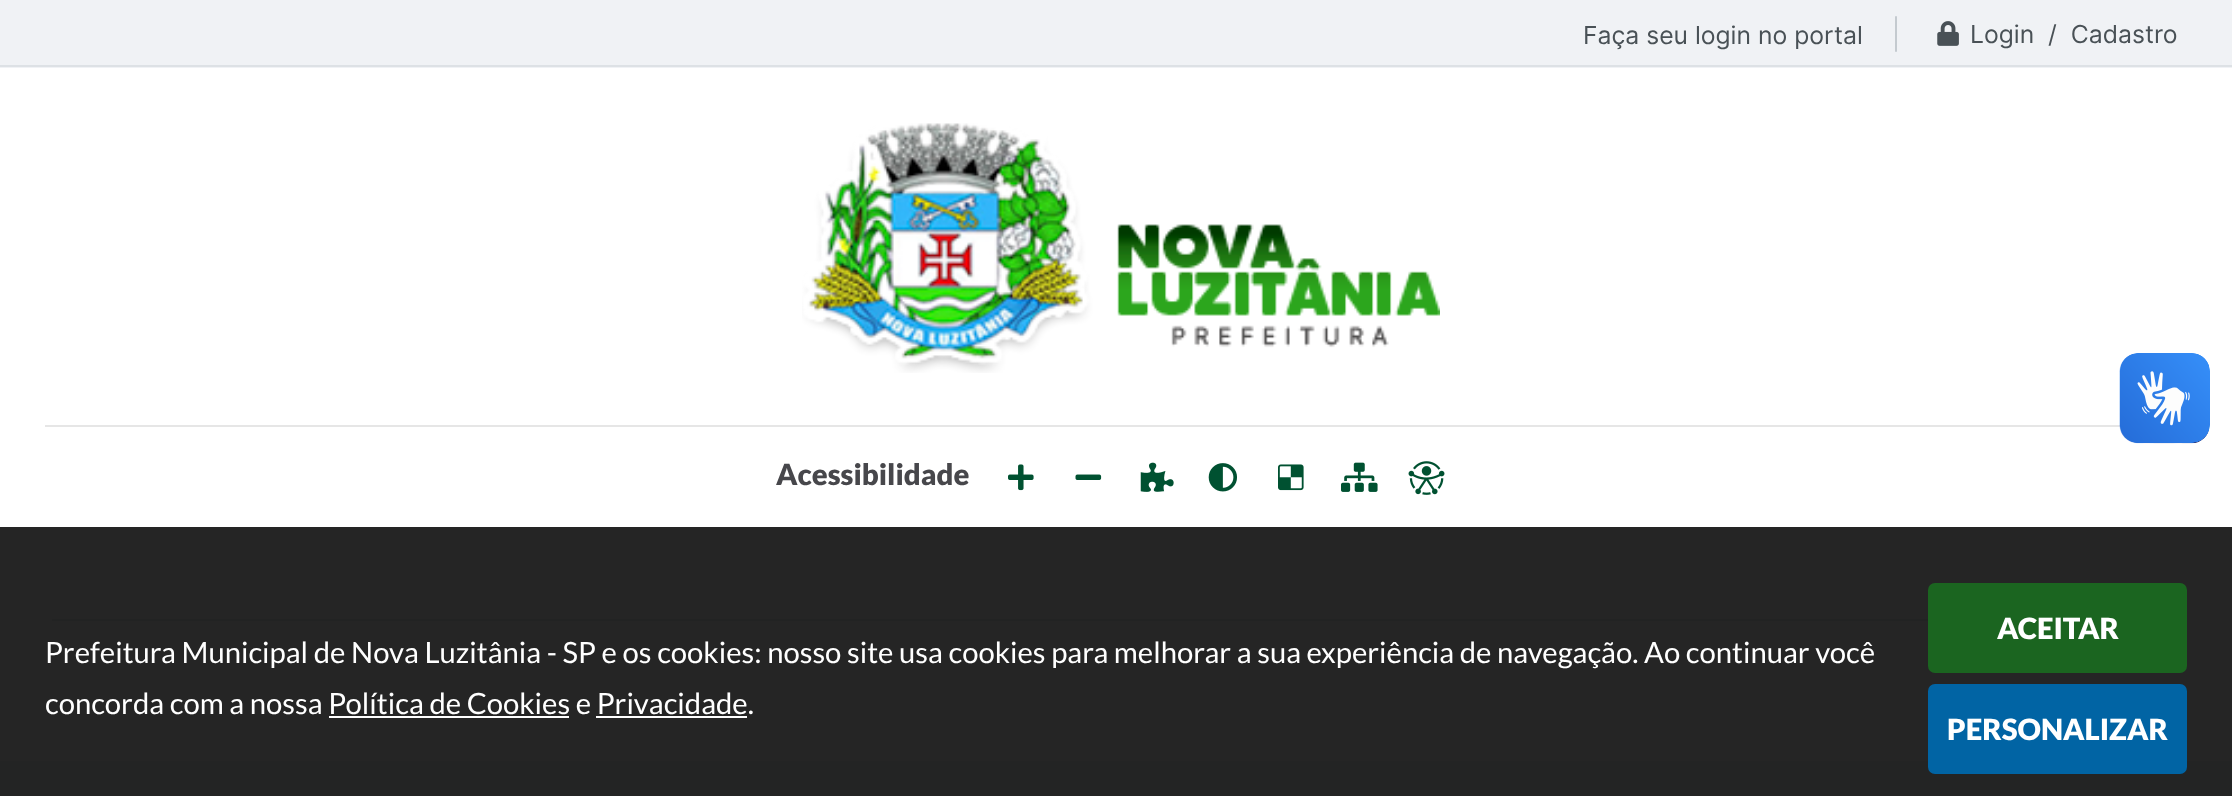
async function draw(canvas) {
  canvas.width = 2232;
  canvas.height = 796;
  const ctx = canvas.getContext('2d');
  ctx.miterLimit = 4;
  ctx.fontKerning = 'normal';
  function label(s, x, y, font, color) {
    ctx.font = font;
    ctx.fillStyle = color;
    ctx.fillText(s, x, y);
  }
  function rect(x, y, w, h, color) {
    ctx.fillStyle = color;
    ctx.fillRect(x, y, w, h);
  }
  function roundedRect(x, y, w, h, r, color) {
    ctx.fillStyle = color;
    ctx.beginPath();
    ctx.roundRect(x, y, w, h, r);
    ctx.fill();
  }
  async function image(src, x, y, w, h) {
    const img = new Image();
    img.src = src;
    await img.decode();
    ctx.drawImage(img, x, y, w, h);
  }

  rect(0, 0, 2232, 796, '#fff');
  rect(0, 527, 2232, 234, '#252525');
  rect(0, 0, 2232, 68, '#f0f2f5');
  rect(0, 65, 2232, 2, '#dde1e5');
  label('Faça seu login no portal', 1583, 44, '24.75px Inter', '#495156');
  roundedRect(1895, 16, 2, 36, 1, '#c4cacf');
  await image('assets/img1.png', 1937, 21, 22, 25);
  label('Login  /  Cadastro', 1970, 43, '24.75px Inter', '#495156');
  rect(45, 425, 2076, 2, '#e6e6e6');
  await image('assets/img2.png', 2119, 353, 91, 91);
  await image('assets/img3.png', 2120, 353, 90, 90);
  label('Prefeitura Municipal de Nova Luzitânia - SP e os cookies: nosso site usa cookies para melhorar a sua experiência de navegação. Ao continuar você', 45, 663, '29.25px Lato', '#fff');
  label('concorda com a nossa Política de Cookies e Privacidade.', 45, 714, '29.25px Lato', '#fff');
  rect(329, 716, 240, 2, '#fff');
  rect(596, 716, 151, 2, '#fff');
  roundedRect(1928, 583, 259, 90, 7, '#1b6520');
  label('ACEITAR', 1997, 639, '900 29.25px Lato', '#fff');
  rect(0, 761, 2232, 35, '#232424');
  roundedRect(1928, 684, 259, 90, 7, '#0164a4');
  label('PERSONALIZAR', 1947, 740, '900 29.25px Lato', '#fff');
  await image('assets/img4.png', 802, 123, 638, 250);
  label('Acessibilidade', 776, 485, '900 29.25px Lato', '#47474b');
  await image('assets/img5.png', 1008, 464, 26, 27);
  await image('assets/img6.png', 1075, 474, 27, 6);
  await image('assets/img7.png', 1140, 462, 34, 30);
  await image('assets/img8.png', 1208, 463, 29, 29);
  await image('assets/img9.png', 1278, 464, 26, 27);
  await image('assets/img10.png', 1341, 462, 37, 30);
  await image('assets/img11.png', 1408, 461, 37, 34);
  rect(52, 619, 1876, 2, '#222323');
}

draw(document.querySelector('canvas'));
